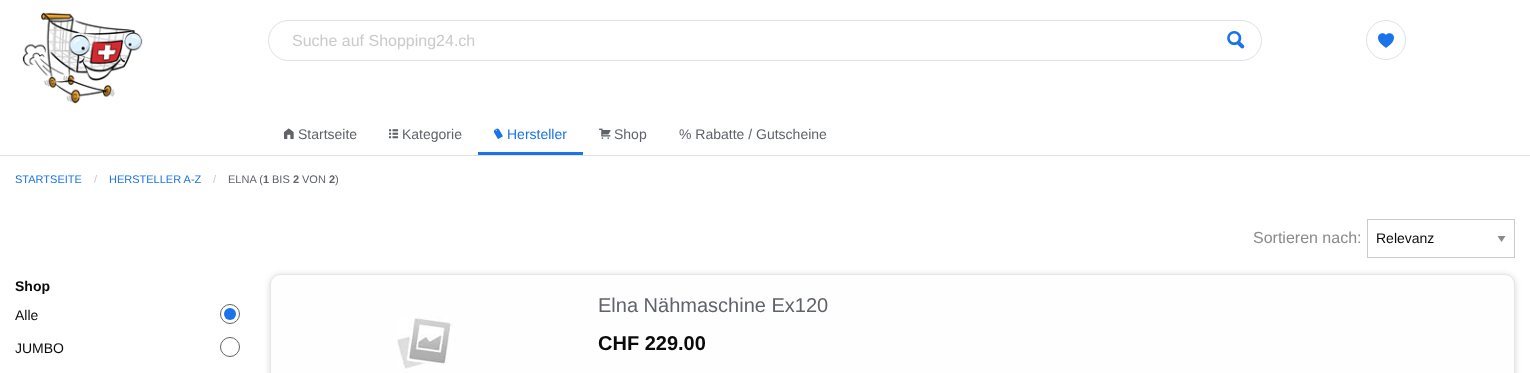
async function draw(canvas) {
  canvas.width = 1530;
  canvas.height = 373;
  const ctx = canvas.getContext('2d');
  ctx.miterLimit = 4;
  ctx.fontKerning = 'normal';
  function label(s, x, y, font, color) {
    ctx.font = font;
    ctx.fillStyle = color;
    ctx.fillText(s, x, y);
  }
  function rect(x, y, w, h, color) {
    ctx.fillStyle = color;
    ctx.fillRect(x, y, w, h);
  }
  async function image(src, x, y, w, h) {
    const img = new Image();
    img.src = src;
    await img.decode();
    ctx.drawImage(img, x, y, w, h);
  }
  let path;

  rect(0, 0, 1530, 373, '#fff');
  rect(0, 155, 1530, 1, '#dfe1e5');
  await image('assets/img1.png', 22, 12, 121, 92);
  ctx.beginPath();
  ctx.roundRect(268.5, 20.5, 993, 40, 20);
  ctx.strokeStyle = '#dfe1e5';
  ctx.stroke();
  label('Suche auf Shopping24.ch', 292, 46, '16px Liberation Sans', '#cacaca');
  await image('assets/img2.png', 1227, 31, 18, 18);
  ctx.beginPath();
  ctx.arc(1386, 40, 19.5, 0, 2 * Math.PI);
  ctx.stroke();
  await image('assets/img3.png', 1378, 33, 16, 15);
  await image('assets/img4.png', 284, 128, 10, 12);
  label('Startseite', 298, 139, '14px Liberation Sans', '#5f6368');
  await image('assets/img5.png', 389, 129, 10, 10);
  label('Kategorie', 402, 139, '14px Liberation Sans', '#5f6368');
  rect(478, 152, 105, 3, '#1a73e8');
  await image('assets/img6.png', 494, 128, 9, 11);
  label('Hersteller', 507, 139, '14px Liberation Sans', '#1a73e8');
  await image('assets/img7.png', 599, 128, 12, 11);
  label('Shop', 614, 139, '14px Liberation Sans', '#5f6368');
  label('% Rabatte / Gutscheine', 679, 139, '14px Liberation Sans', '#5f6368');
  label('STARTSEITE', 15, 183, '11px Liberation Sans', '#1a73e8');
  label('/', 94, 183, '11px Liberation Sans', '#cacaca');
  label('HERSTELLER A-Z', 109, 183, '11px Liberation Sans', '#1a73e8');
  label('/', 213, 183, '11px Liberation Sans', '#cacaca');
  label('ELNA (', 228, 183, '11px Liberation Sans', '#5f6368');
  label('1', 263, 183, 'bold 11px Liberation Sans', '#5f6368');
  label('BIS', 272, 183, '11px Liberation Sans', '#5f6368');
  label('2', 293, 183, 'bold 11px Liberation Sans', '#5f6368');
  label('VON', 302, 183, '11px Liberation Sans', '#5f6368');
  label('2', 329, 183, 'bold 11px Liberation Sans', '#5f6368');
  label(')', 335, 183, '11px Liberation Sans', '#5f6368');
  label('Sortieren nach:', 1253, 243, '16px Liberation Sans', '#8a8a8a');
  path = new Path2D('M1497.5 236H1505.5L1501.5 242Z');
  ctx.fill(path);
  ctx.strokeStyle = '#cacaca';
  ctx.strokeRect(1367.5, 219.5, 147, 38);
  label('Relevanz', 1376, 243, '14px Liberation Sans', '#0a0a0a');
  label('Shop', 15, 291, 'bold 14px Liberation Sans', '#0a0a0a');
  ctx.beginPath();
  ctx.arc(230, 314, 9.5, 0, 2 * Math.PI);
  ctx.strokeStyle = '#5f6368';
  ctx.stroke();
  label('Alle', 15, 320, '14px Liberation Sans', '#0a0a0a');
  ctx.fillStyle = '#1a73e8';
  ctx.beginPath();
  ctx.arc(230, 314, 6, 0, 2 * Math.PI);
  ctx.fill();
  label('JUMBO', 15, 353, '14px Liberation Sans', '#0a0a0a');
  ctx.beginPath();
  ctx.arc(230, 347, 9.5, 0, 2 * Math.PI);
  ctx.stroke();
  ctx.fillStyle = '#00000029';
  ctx.filter = 'blur(3px)';
  ctx.beginPath();
  ctx.roundRect(270, 275, 1245, 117, 10);
  ctx.fill();
  ctx.filter = 'none';
  ctx.fillStyle = '#fefefe';
  ctx.beginPath();
  ctx.roundRect(270.5, 274.5, 1244, 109, 9.5);
  ctx.fill();
  ctx.strokeStyle = '#e6e6e6';
  ctx.stroke();
  await image('assets/img8.png', 397, 316, 55, 53);
  label('Elna Nähmaschine Ex120', 598, 312, '20px Liberation Sans', '#5f6368');
  label('CHF 229.00', 598, 350, 'bold 20px Liberation Sans', '#0a0a0a');
}

draw(document.querySelector('canvas'));
